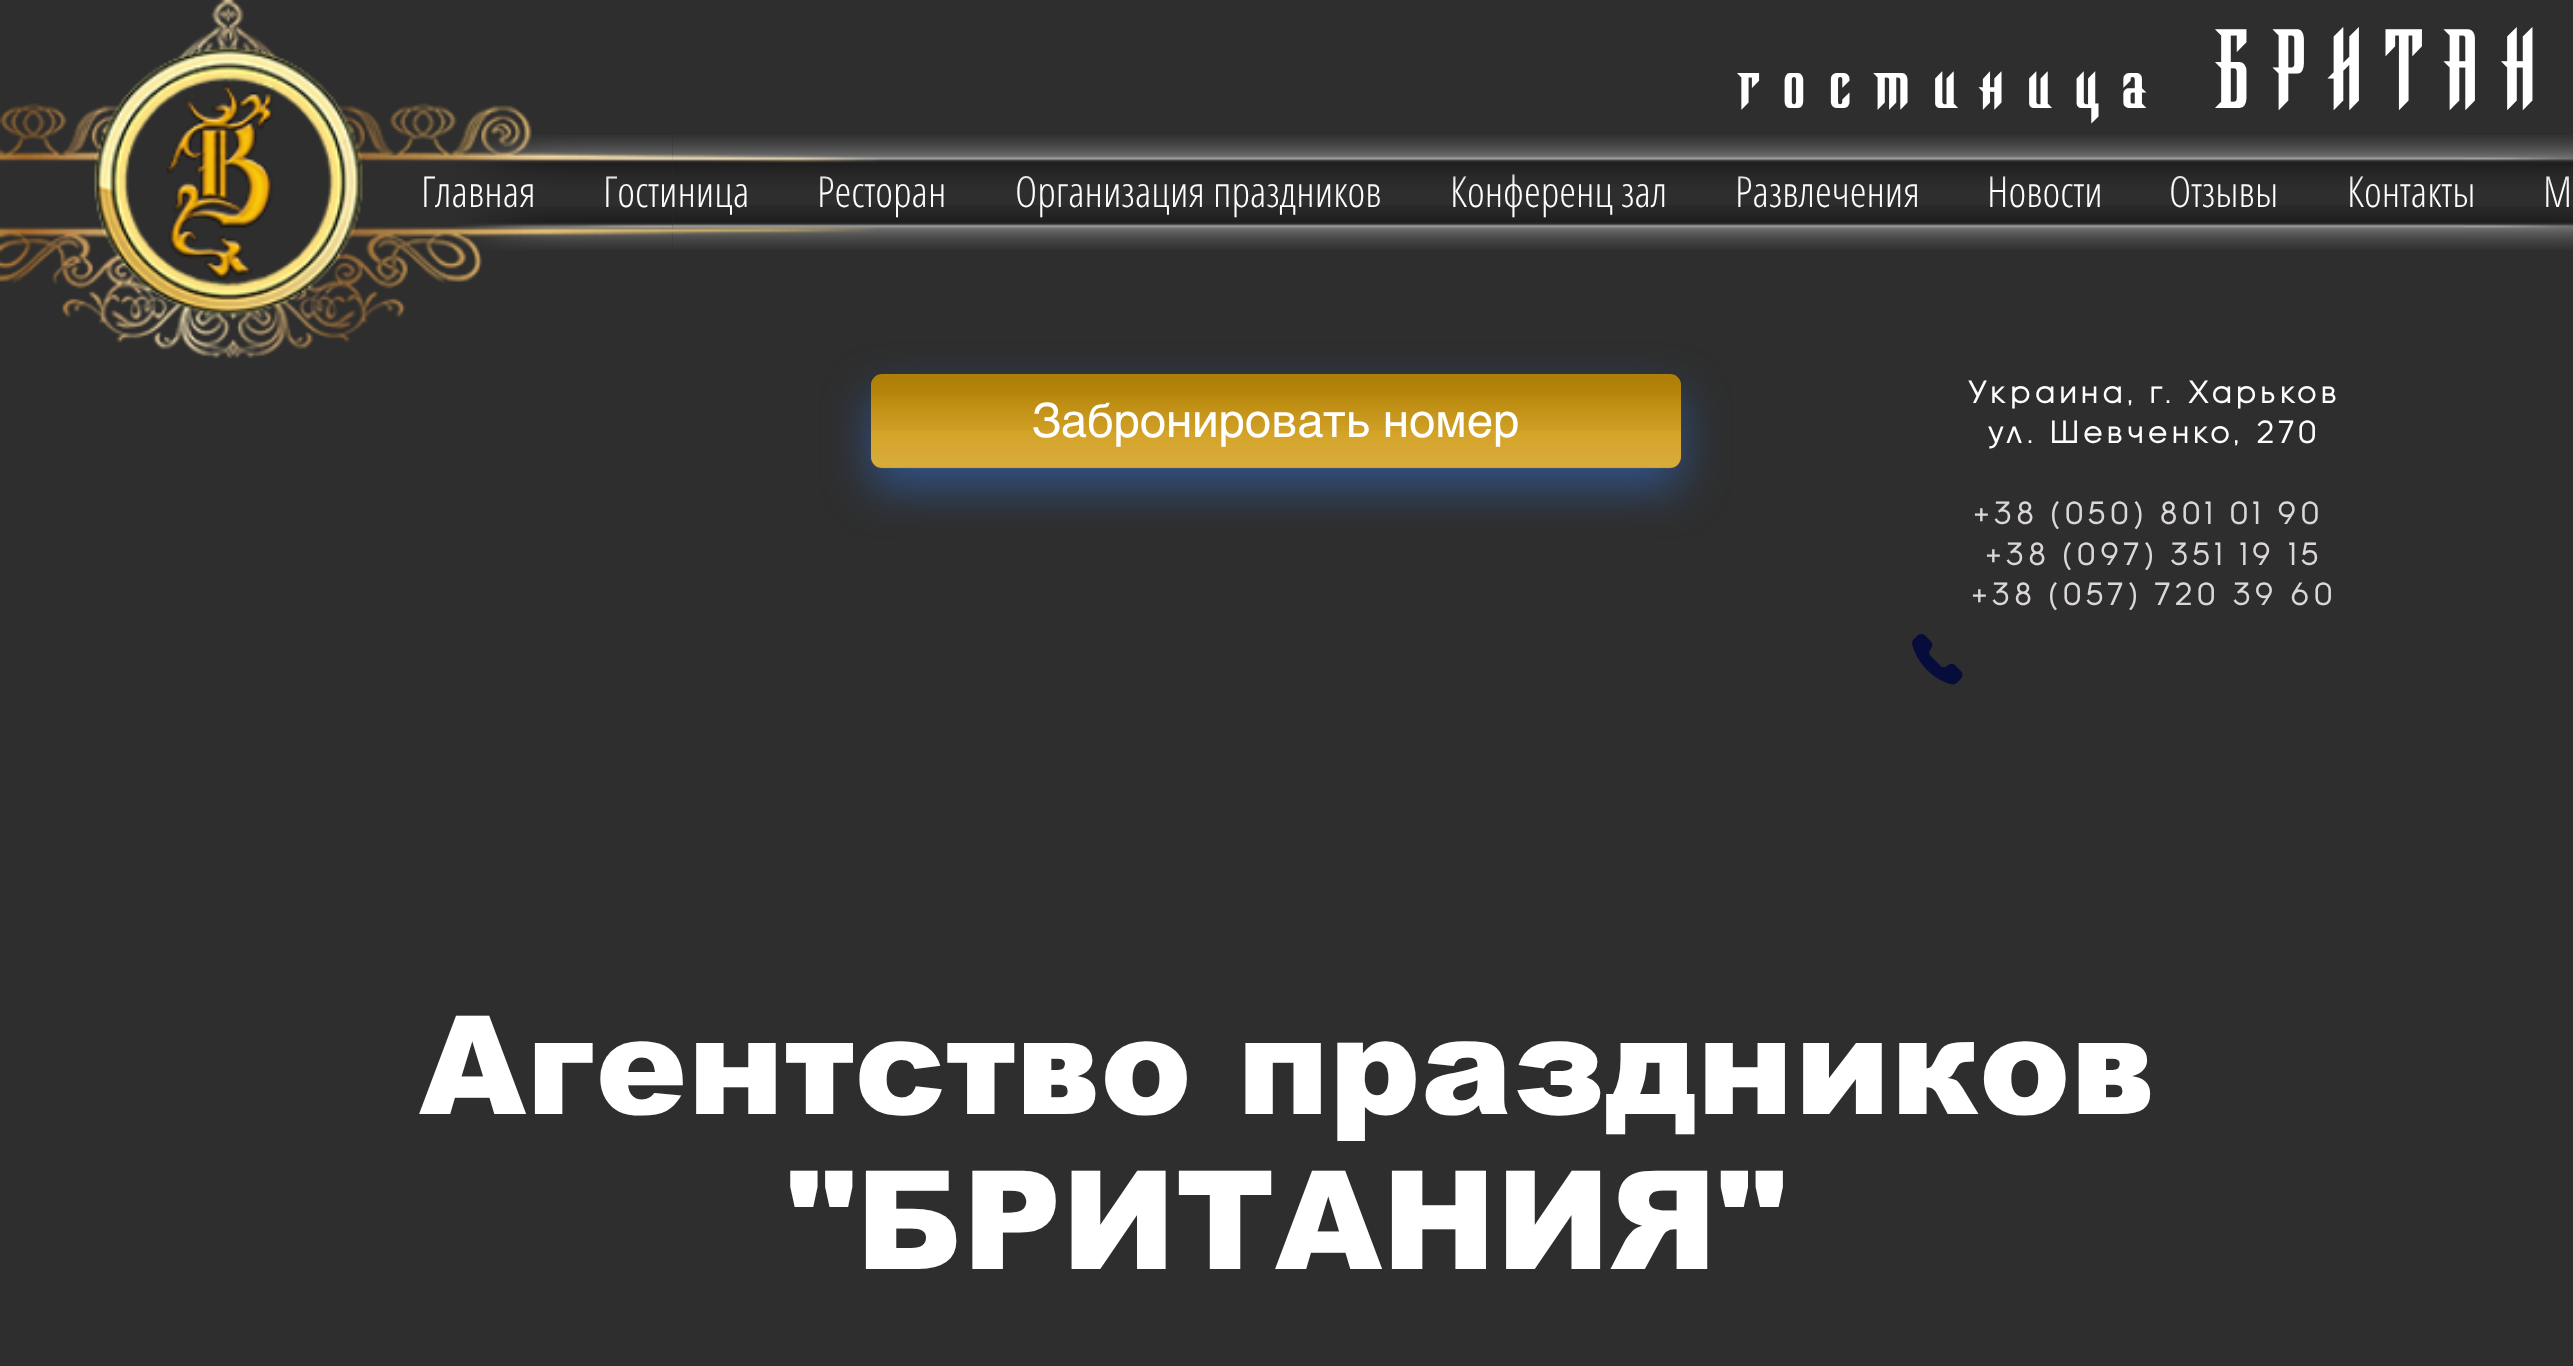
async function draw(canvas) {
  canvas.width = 2573;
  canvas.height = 1366;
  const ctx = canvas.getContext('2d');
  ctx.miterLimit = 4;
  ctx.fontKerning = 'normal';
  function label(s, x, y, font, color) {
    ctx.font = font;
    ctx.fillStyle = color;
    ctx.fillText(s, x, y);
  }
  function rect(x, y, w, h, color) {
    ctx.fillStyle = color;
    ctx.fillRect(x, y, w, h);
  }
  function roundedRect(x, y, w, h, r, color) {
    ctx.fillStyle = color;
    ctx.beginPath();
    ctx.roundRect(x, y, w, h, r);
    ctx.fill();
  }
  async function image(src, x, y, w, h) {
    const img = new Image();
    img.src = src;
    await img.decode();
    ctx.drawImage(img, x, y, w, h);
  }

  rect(0, 0, 2573, 1366, '#2e2e2e');
  ctx.letterSpacing = '21.4px';
  label('гостиница', 1737, 108, '90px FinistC', '#fff');
  label('БРИТАН', 2215, 108, '112.5px FinistC', '#fff');
  await image('assets/img5.png', 456, 206, 217, 44);
  await image('assets/img6.png', 673, 205, 1791, 45);
  await image('assets/img1.png', 0, 0, 878, 359);
  ctx.letterSpacing = '0px';
  label('Главная', 421, 207, '300 42.75px Open Sans Condensed', '#fff');
  label('Гостиница', 603, 207, '300 42.75px Open Sans Condensed', '#fff');
  await image('assets/img2.png', 456, 135, 217, 52);
  label('Ресторан', 817, 207, '300 42.75px Open Sans Condensed', '#fff');
  label('Организация праздников', 1015, 207, '300 42.75px Open Sans Condensed', '#fff');
  label('Конференц зал', 1450, 207, '300 42.75px Open Sans Condensed', '#fff');
  label('Развлечения', 1735, 207, '300 42.75px Open Sans Condensed', '#fff');
  label('Новости', 1987, 207, '300 42.75px Open Sans Condensed', '#fff');
  label('Отзывы', 2169, 207, '300 42.75px Open Sans Condensed', '#fff');
  await image('assets/img7.png', 2464, 206, 109, 44);
  label('Контакты', 2347, 207, '300 42.75px Open Sans Condensed', '#fff');
  await image('assets/img3.png', 673, 135, 1791, 52);
  label('M', 2543, 207, '300 42.75px Open Sans Condensed', '#fff');
  await image('assets/img4.png', 2464, 135, 109, 52);
  ctx.fillStyle = '#305285';
  ctx.filter = 'blur(22.5px)';
  ctx.beginPath();
  ctx.roundRect(871, 394, 810, 94, 11);
  ctx.fill();
  ctx.filter = 'none';
  roundedRect(871, 374, 810, 94, 11, '#cf980c');
  await image('assets/img8.png', 871, 374, 810, 57);
  await image('assets/img9.png', 871, 395, 810, 74);
  label('Забронировать номер', 1032, 437, '47.25px helvetica', '#fff');
  ctx.letterSpacing = '6.25px';
  label('Украина, г. Харьков', 1968, 403, 'bold 31.5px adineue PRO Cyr', '#fff');
  label('ул. Шевченко, 270', 1988, 443, 'bold 31.5px adineue PRO Cyr', '#fff');
  label('+38 (050) 801 01 90', 1974, 524, 'bold 31.5px adineue PRO Cyr', '#dbd7d7');
  label('+38 (097) 351 19 15', 1986, 565, 'bold 31.5px adineue PRO Cyr', '#dbd7d7');
  label('+38 (057) 720 39 60', 1972, 605, 'bold 31.5px adineue PRO Cyr', '#dbd7d7');
  await image('assets/img10.png', 1912, 634, 51, 51);
  ctx.letterSpacing = '0px';
  label('Агентство праздников', 419, 1114, '900 137.25px arial', '#fff');
  label('"БРИТАНИЯ"', 787, 1269, '900 137.25px arial', '#fff');
}

draw(document.querySelector('canvas'));
